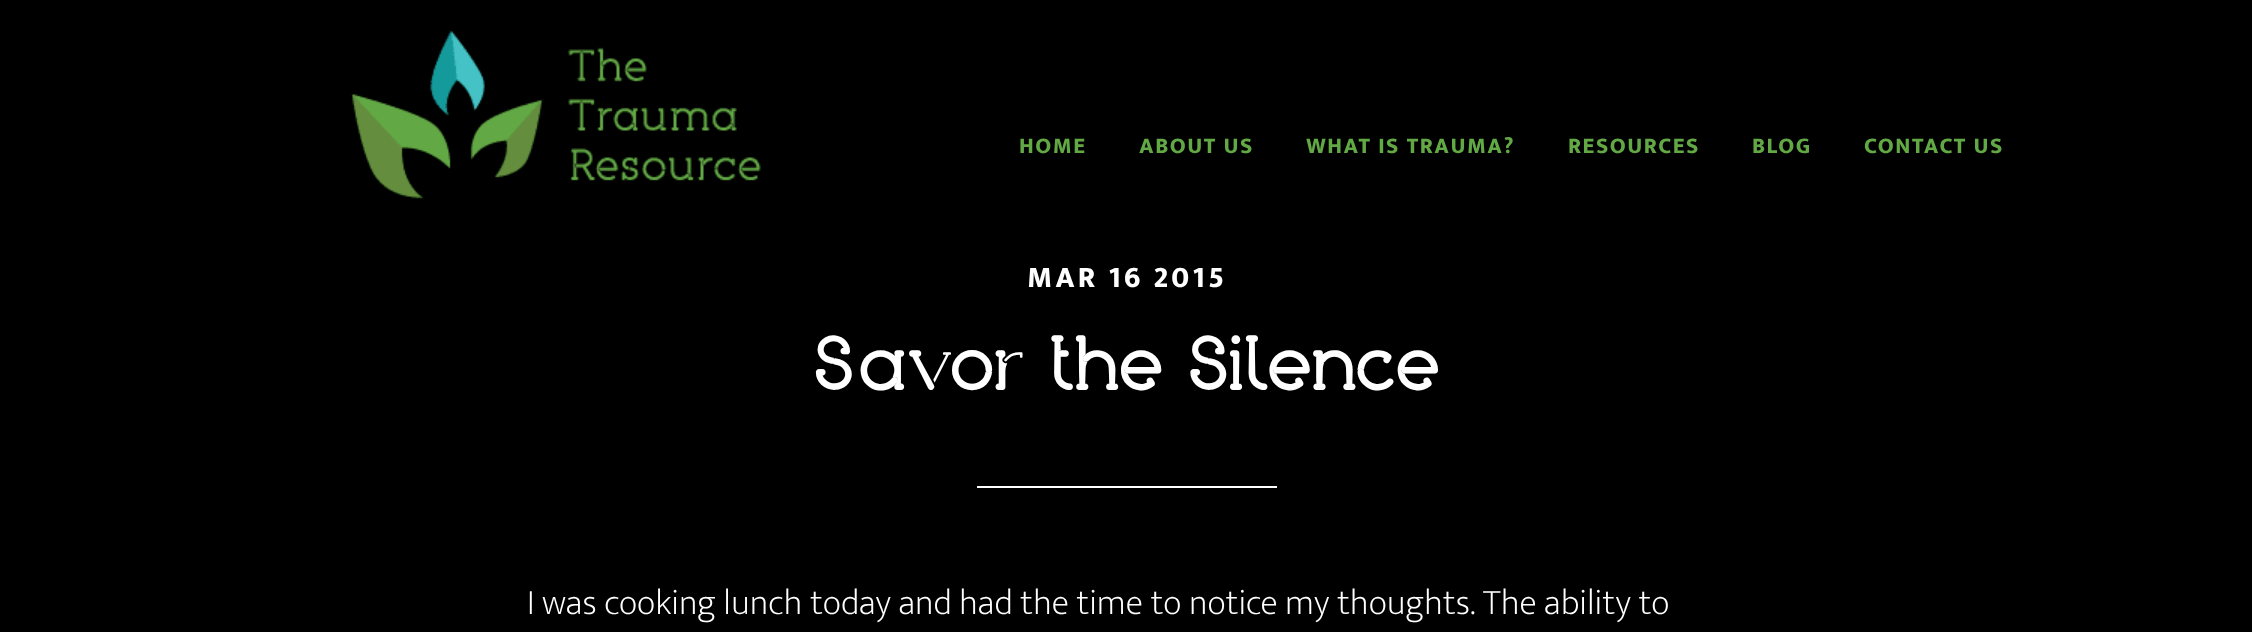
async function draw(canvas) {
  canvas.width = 2252;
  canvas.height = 632;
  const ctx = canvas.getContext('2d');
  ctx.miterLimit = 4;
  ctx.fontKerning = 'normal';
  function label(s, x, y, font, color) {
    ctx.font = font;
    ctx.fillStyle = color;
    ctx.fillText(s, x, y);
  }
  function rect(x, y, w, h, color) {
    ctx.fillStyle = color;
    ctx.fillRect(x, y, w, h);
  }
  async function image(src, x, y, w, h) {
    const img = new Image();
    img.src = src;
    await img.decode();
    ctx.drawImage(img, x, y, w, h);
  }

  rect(0, 0, 2252, 632, '#000');
  await image('assets/img1.png', 351, 30, 410, 169);
  ctx.letterSpacing = '1.5px';
  label('HOME', 1019, 153, '800 22.5px Ek Mukta', '#62a945');
  label('ABOUT US', 1139, 153, '800 22.5px Ek Mukta', '#62a945');
  label('WHAT IS TRAUMA?', 1306, 153, '800 22.5px Ek Mukta', '#62a945');
  label('RESOURCES', 1568, 153, '800 22.5px Ek Mukta', '#62a945');
  label('BLOG', 1752, 153, '800 22.5px Ek Mukta', '#62a945');
  label('CONTACT US', 1864, 153, '800 22.5px Ek Mukta', '#62a945');
  ctx.letterSpacing = '3px';
  label('MAR 16 2015', 1027, 287, '800 30px Ek Mukta', '#fff');
  ctx.letterSpacing = '0px';
  label('Savor the Silence', 812, 390, 'bold 72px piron', '#fff');
  rect(977, 486, 300, 2, '#fff');
  label('I was cooking lunch today and had the time to notice my thoughts. The ability to', 527, 614, '200 36px Ek Mukta', '#fff');
}

draw(document.querySelector('canvas'));
